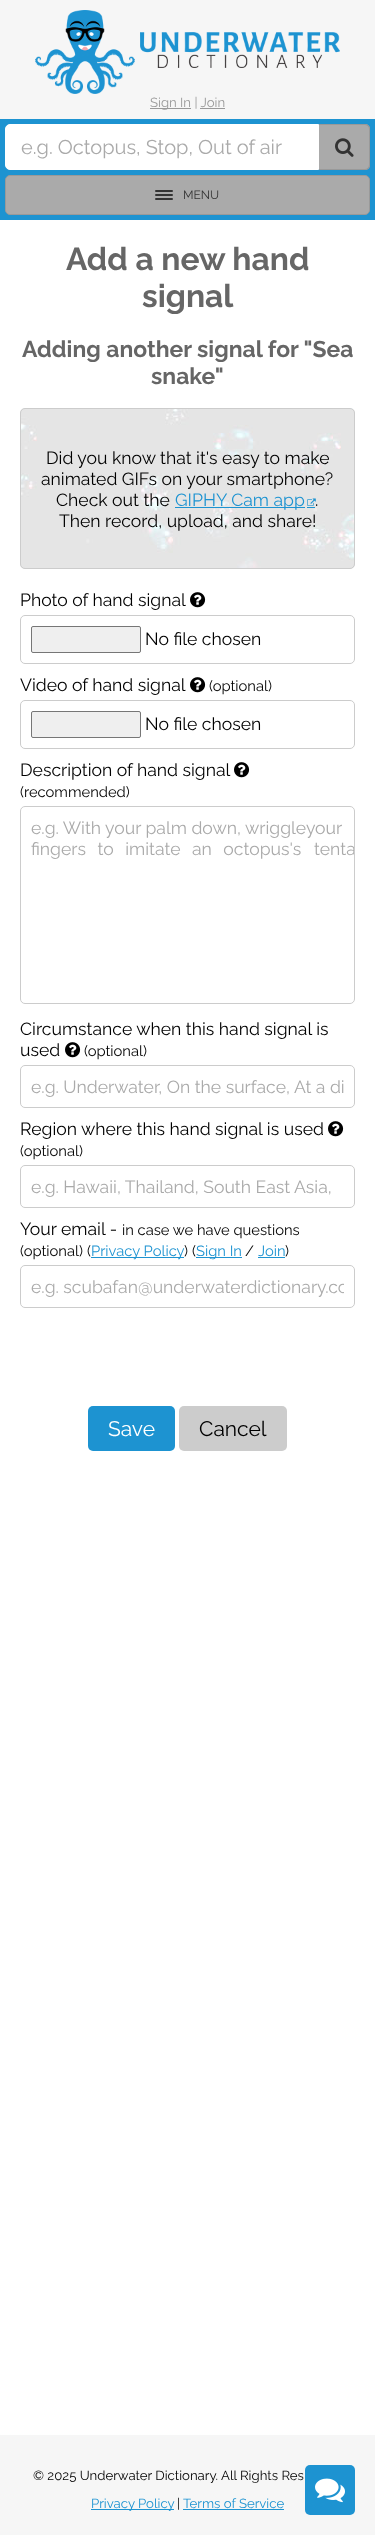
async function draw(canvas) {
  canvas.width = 375;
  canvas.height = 2535;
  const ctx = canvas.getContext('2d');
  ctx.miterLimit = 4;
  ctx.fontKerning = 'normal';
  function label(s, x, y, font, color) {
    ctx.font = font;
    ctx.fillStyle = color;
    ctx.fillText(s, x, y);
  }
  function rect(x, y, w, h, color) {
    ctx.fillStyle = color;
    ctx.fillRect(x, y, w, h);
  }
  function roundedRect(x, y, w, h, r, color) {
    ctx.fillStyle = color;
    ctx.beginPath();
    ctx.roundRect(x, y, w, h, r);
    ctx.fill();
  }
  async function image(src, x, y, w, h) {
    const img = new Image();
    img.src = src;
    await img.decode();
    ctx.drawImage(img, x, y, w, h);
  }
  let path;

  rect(0, 0, 375, 2535, '#fff');
  rect(0, 0, 375, 119, '#f6f6f6');
  await image('assets/img1.png', 35, 10, 100, 84);
  await image('assets/img2.png', 140, 32, 200, 36);
  rect(150, 108, 41, 1, '#999');
  label('Sign In | Join', 150, 107, '13.2px Raleway', '#999');
  rect(200, 108, 25, 1, '#999');
  rect(0, 119, 375, 101, '#1d93d1');
  ctx.fillStyle = '#fff';
  ctx.beginPath();
  ctx.roundRect(5.5, 124.5, 313, 45, [4.5, 0, 0, 4.5]);
  ctx.fill();
  ctx.strokeStyle = '#fff';
  ctx.stroke();
  label('e.g. Octopus, Stop, Out of air', 21, 154, '20px Raleway', '#aaa');
  ctx.beginPath();
  ctx.roundRect(319, 124, 51, 46, [0, 5, 5, 0]);
  ctx.fill();
  ctx.fillStyle = '#999';
  path = new Path2D('M319 124H365C368 124 370 126 370 129V165C370 168 368 170 365 170H319ZM319 125H365C367 125 369 127 369 129V165C369 167 367 169 365 169H319Z');
  ctx.fill(path, 'evenodd');
  await image('assets/img3.png', 335, 138, 19, 19);
  ctx.fillStyle = '#aaa';
  ctx.beginPath();
  ctx.roundRect(5.5, 175.5, 364, 39, 4.5);
  ctx.fill();
  ctx.strokeStyle = '#999';
  ctx.stroke();
  roundedRect(155, 190, 18, 2, 1, '#333');
  roundedRect(155, 194, 18, 2, 1, '#333');
  roundedRect(155, 198, 18, 2, 1, '#333');
  label('MENU', 183, 199, '12px Raleway', '#333');
  label('Add a new hand', 66, 270, 'bold 31.75px Raleway', '#666');
  label('signal', 142, 307, 'bold 31.75px Raleway', '#666');
  label('Adding another signal for "Sea', 22, 357, 'bold 22.9px Raleway', '#666');
  label('snake"', 151, 384, 'bold 22.9px Raleway', '#666');
  await image('assets/img4.png', 20, 408, 335, 161);
  ctx.beginPath();
  ctx.roundRect(20.5, 408.5, 334, 160, 4.5);
  ctx.strokeStyle = '#ccc';
  ctx.stroke();
  label('Did you know that it\'s easy to make', 46, 464, '17.6px Raleway', '#000');
  label('animated GIFs on your smartphone?', 41, 485, '17.6px Raleway', '#000');
  label('Check out the', 56, 506, '17.6px Raleway', '#000');
  rect(175, 507, 130, 1, '#1d93d1');
  label('GIPHY Cam app', 175, 506, '17.6px Raleway', '#1d93d1');
  rect(307, 507, 8, 1, '#1d93d1');
  await image('assets/img5.png', 307, 498, 9, 8);
  label('.', 315, 506, '17.6px Raleway', '#000');
  label('Then record, upload, and share!', 59, 527, '17.6px Raleway', '#000');
  label('Photo of hand signal', 20, 606, '17.6px Raleway', '#000');
  await image('assets/img6.png', 190, 592, 16, 16);
  ctx.beginPath();
  ctx.roundRect(20.5, 615.5, 334, 48, 4.5);
  ctx.stroke();
  ctx.fillStyle = '#efefef';
  ctx.beginPath();
  ctx.roundRect(31.5, 626.5, 109, 26, 1.5);
  ctx.fill();
  ctx.strokeStyle = '#767676';
  ctx.stroke();
  label('No file chosen', 145, 645, '17.6px Raleway', '#000');
  label('Video of hand signal', 20, 691, '17.6px Raleway', '#000');
  await image('assets/img6.png', 190, 677, 16, 16);
  label('(optional)', 209, 691, '14.75px Raleway', '#000');
  ctx.beginPath();
  ctx.roundRect(20.5, 700.5, 334, 48, 4.5);
  ctx.strokeStyle = '#ccc';
  ctx.stroke();
  ctx.fillStyle = '#efefef';
  ctx.beginPath();
  ctx.roundRect(31.5, 711.5, 109, 26, 1.5);
  ctx.fill();
  ctx.strokeStyle = '#767676';
  ctx.stroke();
  label('No file chosen', 145, 730, '17.6px Raleway', '#000');
  label('Description of hand signal', 20, 776, '17.6px Raleway', '#000');
  await image('assets/img6.png', 234, 762, 16, 16);
  label('(recommended)', 20, 797, '14.75px Raleway', '#000');
  ctx.beginPath();
  ctx.roundRect(20.5, 806.5, 334, 197, 4.5);
  ctx.strokeStyle = '#ccc';
  ctx.stroke();
  label('e.g. With your palm down, wriggleyour', 31, 834, '17.6px Raleway', '#aaa');
  ctx.wordSpacing = '7px';
  label('fingers to imitate an octopus\'s', 31, 855, '17.6px Raleway', '#aaa');
  ctx.save();
  ctx.beginPath();
  ctx.roundRect(21, 807, 333, 196, 4);
  ctx.clip();
  ctx.wordSpacing = '0px';
  label('tenta', 314, 855, '17.6px Raleway', '#aaa');
  ctx.restore();
  ctx.wordSpacing = '0px';
  label('Circumstance when this hand signal is', 20, 1035, '17.6px Raleway', '#000');
  label('used', 20, 1056, '17.6px Raleway', '#000');
  await image('assets/img6.png', 65, 1042, 16, 16);
  label('(optional)', 84, 1056, '14.75px Raleway', '#000');
  ctx.beginPath();
  ctx.roundRect(20.5, 1065.5, 334, 42, 4.5);
  ctx.stroke();
  label('e.g. Underwater, On the surface, At a di', 31, 1093, '17.6px Raleway', '#aaa');
  label('Region where this hand signal is used', 20, 1135, '17.6px Raleway', '#000');
  await image('assets/img6.png', 328, 1121, 16, 16);
  label('(optional)', 20, 1156, '14.75px Raleway', '#000');
  ctx.beginPath();
  ctx.roundRect(20.5, 1165.5, 334, 42, 4.5);
  ctx.stroke();
  label('e.g. Hawaii, Thailand, South East Asia,', 31, 1193, '17.6px Raleway', '#aaa');
  label('Your email -', 20, 1235, '17.6px Raleway', '#000');
  label('in case we have questions', 122, 1235, '14.75px Raleway', '#000');
  label('(optional)', 20, 1256, '14.75px Raleway', '#000');
  label('(', 87, 1256, '14.75px Raleway', '#000');
  rect(91, 1257, 93, 1, '#1d93d1');
  label('Privacy Policy', 91, 1256, '14.75px Raleway', '#1d93d1');
  label(')', 184, 1256, '14.75px Raleway', '#000');
  label('(', 192, 1256, '14.75px Raleway', '#000');
  rect(196, 1257, 46, 1, '#1d93d1');
  label('Sign In', 196, 1256, '14.75px Raleway', '#1d93d1');
  label('/', 245, 1256, '14.75px Raleway', '#000');
  label('Join', 258, 1256, '14.75px Raleway', '#1d93d1');
  rect(258, 1257, 27, 1, '#1d93d1');
  label(')', 285, 1256, '14.75px Raleway', '#000');
  ctx.beginPath();
  ctx.roundRect(20.5, 1265.5, 334, 42, 4.5);
  ctx.stroke();
  ctx.save();
  ctx.beginPath();
  ctx.rect(31, 1276, 313, 21);
  ctx.clip();
  label('e.g. scubafan@underwaterdictionary.co', 31, 1293, '17.6px Raleway', '#aaa');
  ctx.restore();
  roundedRect(88, 1406, 87, 45, 5, '#1d93d1');
  label('Save', 108, 1436, '21px Raleway', '#fff');
  roundedRect(179, 1406, 108, 45, 5, '#ccc');
  label('Cancel', 199, 1436, '21px Raleway', '#000');
  rect(0, 2435, 375, 100, '#f6f6f6');
  label('© 2025 Underwater Dictionary. All Rights Res', 33, 2480, '13.2px Raleway', '#000');
  rect(91, 2509, 83, 1, '#1d93d1');
  label('Privacy Policy', 91, 2508, '13.2px Raleway', '#1d93d1');
  label('|', 177, 2508, '13.2px Raleway', '#000');
  label('Terms of Service', 183, 2508, '13.2px Raleway', '#1d93d1');
  rect(183, 2509, 101, 1, '#1d93d1');
  roundedRect(305, 2465, 50, 50, 5, '#1d93d1');
  await image('assets/img7.png', 315, 2478, 30, 25);
}

draw(document.querySelector('canvas'));
